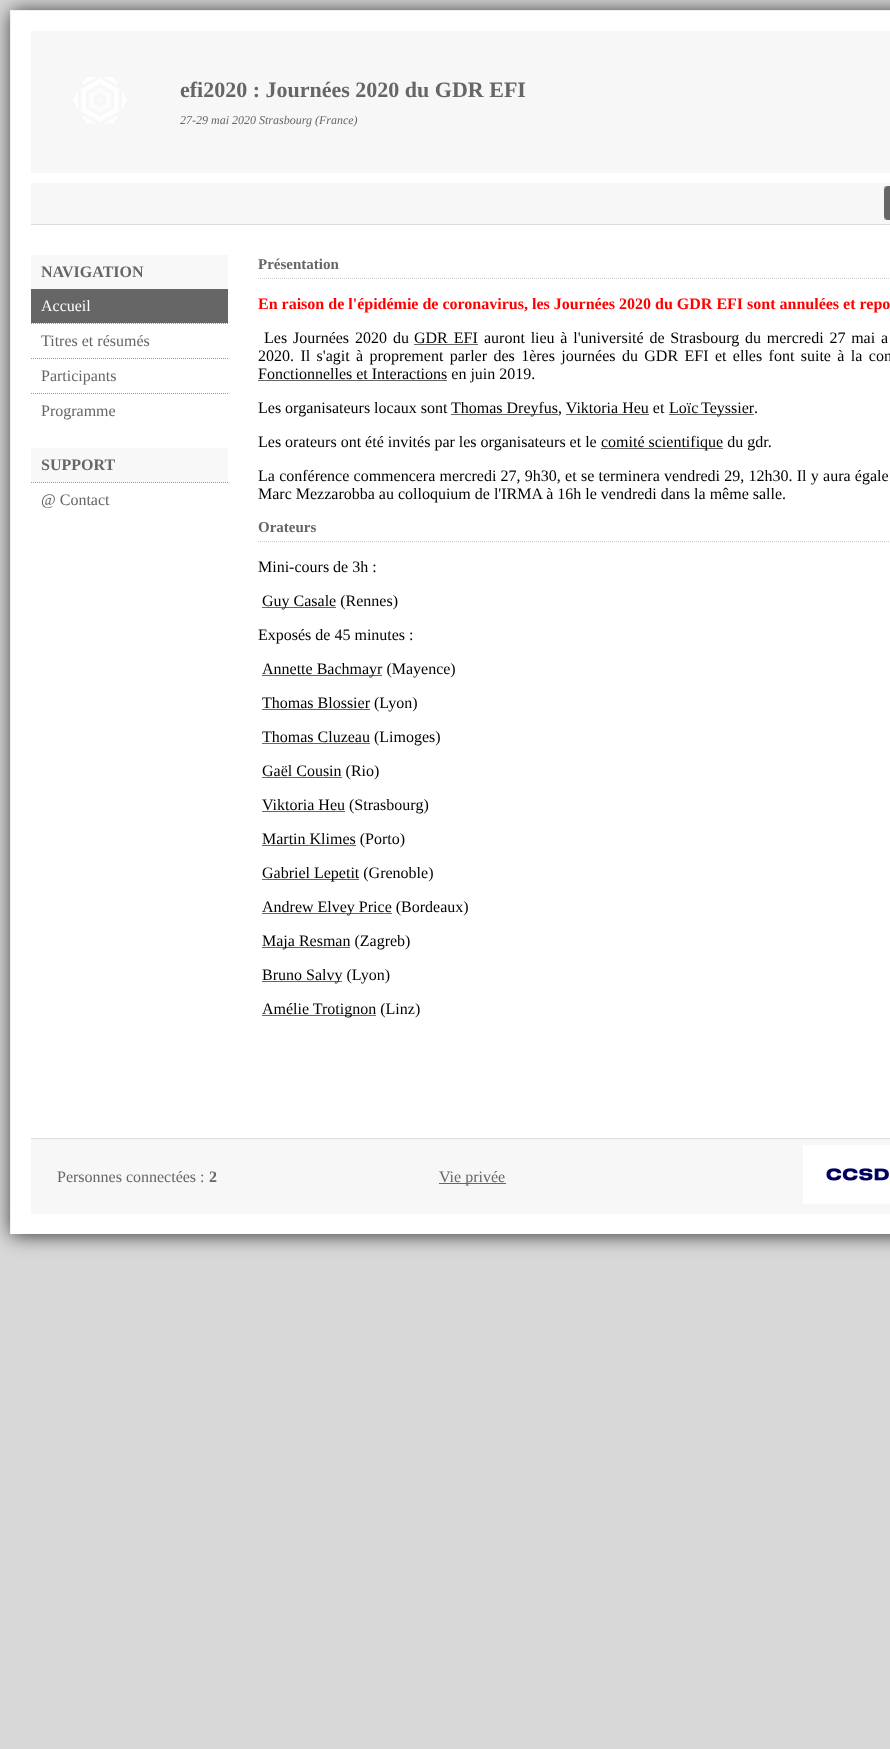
async function draw(canvas) {
  canvas.width = 890;
  canvas.height = 1749;
  const ctx = canvas.getContext('2d');
  ctx.miterLimit = 4;
  ctx.fontKerning = 'normal';
  function label(s, x, y, font, color) {
    ctx.font = font;
    ctx.fillStyle = color;
    ctx.fillText(s, x, y);
  }
  function rect(x, y, w, h, color) {
    ctx.fillStyle = color;
    ctx.fillRect(x, y, w, h);
  }
  async function image(src, x, y, w, h) {
    const img = new Image();
    img.src = src;
    await img.decode();
    ctx.drawImage(img, x, y, w, h);
  }
  let path;

  rect(0, 0, 890, 1749, '#d9d8d9');
  ctx.fillStyle = '#333';
  ctx.filter = 'blur(10px)';
  ctx.beginPath();
  ctx.rect(11, 11, 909, 1224);
  ctx.fill();
  ctx.filter = 'none';
  rect(11, 11, 879, 1223, '#fff');
  rect(10, 10, 880, 1, '#f1f1f1');
  rect(10, 10, 1, 1224, '#f1f1f1');
  rect(31, 31, 859, 142, '#f7f7f7');
  await image('assets/img1.png', 73, 77, 54, 47);
  label('efi2020 : Journées 2020 du GDR EFI', 180, 97, 'bold 22px Liberation Serif', '#666');
  label('27-29 mai 2020 Strasbourg (France)', 180, 124, 'italic 12px Liberation Serif', '#666');
  rect(31, 183, 859, 41, '#f7f7f7');
  rect(31, 224, 859, 1, '#ddd');
  rect(884, 186, 4, 34, '#ccc');
  ctx.fillStyle = '#666';
  path = new Path2D('M888 186H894V220H888C886 220 884 218 884 216V190C884 188 886 186 888 186Z');
  ctx.fill(path);
  rect(31, 255, 197, 34, '#f8f8f8');
  label('NAVIGATION', 41, 277, 'bold 16px Liberation Serif', '#666');
  rect(31, 289, 197, 34, '#666');
  label('Accueil', 41, 311, '16px Liberation Serif', '#fff');
  path = new Path2D('M31 323.5H228');
  ctx.strokeStyle = '#999';
  ctx.setLineDash([1, 1]);
  ctx.stroke(path);
  label('Titres et résumés', 41, 346, '16px Liberation Serif', '#666');
  path = new Path2D('M31 358.5H228');
  ctx.stroke(path);
  label('Participants', 41, 381, '16px Liberation Serif', '#666');
  path = new Path2D('M31 393.5H228');
  ctx.stroke(path);
  label('Programme', 41, 416, '16px Liberation Serif', '#666');
  rect(31, 448, 197, 34, '#f8f8f8');
  label('SUPPORT', 41, 470, 'bold 16px Liberation Serif', '#666');
  path = new Path2D('M31 482.5H228');
  ctx.stroke(path);
  label('@ Contact', 41, 505, '16px Liberation Serif', '#666');
  path = new Path2D('M258 278.5H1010');
  ctx.strokeStyle = '#ccc';
  ctx.stroke(path);
  label('Présentation', 258, 269, 'bold 15px Liberation Serif', '#666');
  label('En raison de l\'épidémie de coronavirus, les Journées 2020 du GDR EFI sont annulées et repo', 258, 309, 'bold 16px Liberation Serif', '#f00');
  ctx.wordSpacing = '2px';
  label('Les Journées 2020 du', 264, 343, '16px Liberation Serif', '#000');
  label('GDR EFI', 414, 343, '16px Liberation Serif', '#000');
  rect(414, 344, 64, 1, '#666');
  ctx.wordSpacing = '1.75px';
  label('auront lieu à l\'université de Strasbourg du mercredi 27 mai a', 484, 343, '16px Liberation Serif', '#000');
  ctx.wordSpacing = '2.4px';
  label('2020. Il s\'agit à proprement parler des 1ères journées du GDR EFI et elles font suite à la con', 258, 361, '16px Liberation Serif', '#000');
  rect(258, 380, 189, 1, '#666');
  ctx.wordSpacing = '0px';
  label('Fonctionnelles et Interactions en juin 2019.', 258, 379, '16px Liberation Serif', '#000');
  label('Les organisateurs locaux sont', 258, 413, '16px Liberation Serif', '#000');
  rect(451, 414, 107, 1, '#666');
  label('Thomas Dreyfus, Viktoria Heu et', 451, 413, '16px Liberation Serif', '#000');
  rect(566, 414, 83, 1, '#666');
  rect(669, 414, 85, 1, '#666');
  ctx.wordSpacing = '-1px';
  label('Loïc Teyssier', 669, 413, '16px Liberation Serif', '#000');
  ctx.wordSpacing = '0px';
  label('.', 754, 413, '16px Liberation Serif', '#000');
  label('Les orateurs ont été invités par les organisateurs et le', 258, 447, '16px Liberation Serif', '#000');
  rect(601, 448, 122, 1, '#666');
  label('comité scientifique du gdr.', 601, 447, '16px Liberation Serif', '#000');
  ctx.wordSpacing = '0.25px';
  label('La conférence commencera mercredi 27, 9h30, et se terminera vendredi 29, 12h30. Il y aura égale', 258, 481, '16px Liberation Serif', '#000');
  ctx.wordSpacing = '0px';
  label('Marc Mezzarobba au colloquium de l\'IRMA à 16h le vendredi dans la même salle.', 258, 499, '16px Liberation Serif', '#000');
  path = new Path2D('M258 541.5H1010');
  ctx.stroke(path);
  label('Orateurs', 258, 532, 'bold 15px Liberation Serif', '#666');
  label('Mini-cours de 3h :', 258, 572, '16px Liberation Serif', '#000');
  rect(262, 607, 74, 1, '#666');
  label('Guy Casale (Rennes)', 262, 606, '16px Liberation Serif', '#000');
  label('Exposés de 45 minutes :', 258, 640, '16px Liberation Serif', '#000');
  rect(262, 675, 120, 1, '#666');
  label('Annette Bachmayr (Mayence)', 262, 674, '16px Liberation Serif', '#000');
  rect(262, 709, 108, 1, '#666');
  label('Thomas Blossier (Lyon)', 262, 708, '16px Liberation Serif', '#000');
  rect(262, 743, 108, 1, '#666');
  label('Thomas Cluzeau (Limoges)', 262, 742, '16px Liberation Serif', '#000');
  rect(262, 777, 80, 1, '#666');
  label('Gaël Cousin (Rio)', 262, 776, '16px Liberation Serif', '#000');
  rect(262, 811, 83, 1, '#666');
  label('Viktoria Heu (Strasbourg)', 262, 810, '16px Liberation Serif', '#000');
  rect(262, 845, 94, 1, '#666');
  label('Martin Klimes (Porto)', 262, 844, '16px Liberation Serif', '#000');
  rect(262, 879, 97, 1, '#666');
  label('Gabriel Lepetit (Grenoble)', 262, 878, '16px Liberation Serif', '#000');
  rect(262, 913, 130, 1, '#666');
  label('Andrew Elvey Price (Bordeaux)', 262, 912, '16px Liberation Serif', '#000');
  rect(262, 947, 88, 1, '#666');
  label('Maja Resman (Zagreb)', 262, 946, '16px Liberation Serif', '#000');
  rect(262, 981, 80, 1, '#666');
  label('Bruno Salvy (Lyon)', 262, 980, '16px Liberation Serif', '#000');
  rect(262, 1015, 114, 1, '#666');
  label('Amélie Trotignon (Linz)', 262, 1014, '16px Liberation Serif', '#000');
  rect(31, 1139, 859, 75, '#f7f7f7');
  rect(31, 1138, 859, 1, '#ddd');
  label('Personnes connectées :', 57, 1182, '16px Liberation Serif', '#666');
  label('2', 209, 1182, 'bold 16px Liberation Serif', '#666');
  rect(439, 1183, 67, 1, '#666');
  label('Vie privée', 439, 1182, '16px Liberation Serif', '#666');
  await image('assets/img2.png', 803, 1145, 87, 59);
}

draw(document.querySelector('canvas'));
